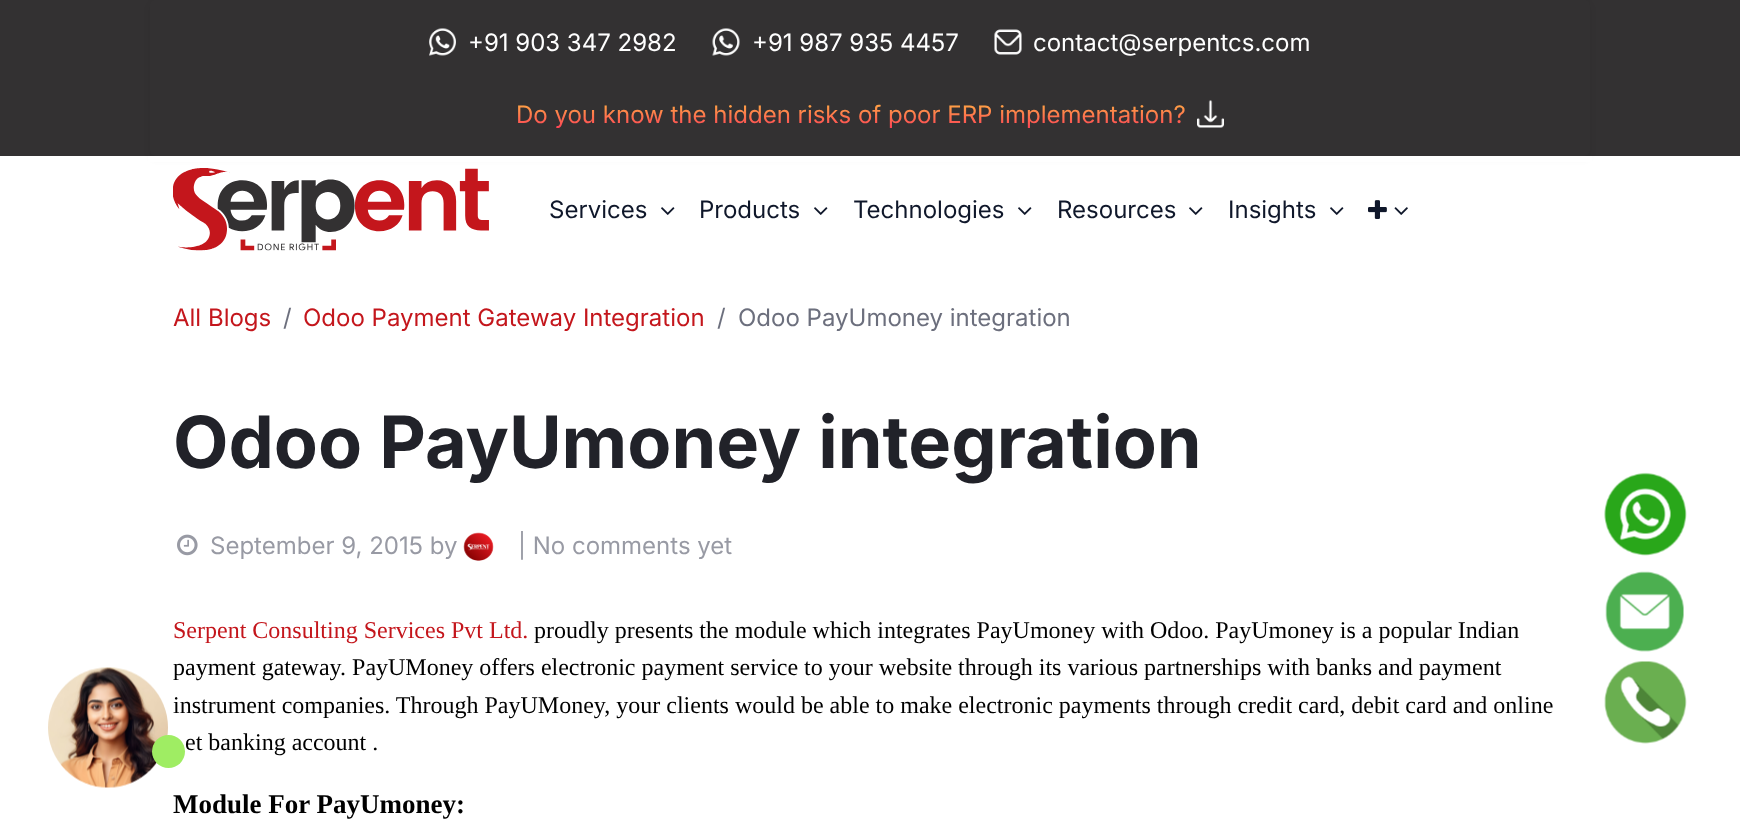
async function draw(canvas) {
  canvas.width = 1740;
  canvas.height = 835;
  const ctx = canvas.getContext('2d');
  ctx.miterLimit = 4;
  ctx.fontKerning = 'normal';
  function label(s, x, y, font, color) {
    ctx.font = font;
    ctx.fillStyle = color;
    ctx.fillText(s, x, y);
  }
  function rect(x, y, w, h, color) {
    ctx.fillStyle = color;
    ctx.fillRect(x, y, w, h);
  }
  async function image(src, x, y, w, h) {
    const img = new Image();
    img.src = src;
    await img.decode();
    ctx.drawImage(img, x, y, w, h);
  }
  let gradient, path;

  rect(0, 0, 1740, 835, '#fff');
  rect(0, 0, 1740, 156, '#333132');
  ctx.save();
  path = new Path2D('M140 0H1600V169H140ZM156 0H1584C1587.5 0 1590 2.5 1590 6V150C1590 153.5 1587.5 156 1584 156H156C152.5 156 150 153.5 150 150V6C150 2.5 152.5 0 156 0Z');
  ctx.clip(path, 'evenodd');
  ctx.fillStyle = '#00000012';
  ctx.filter = 'blur(3px)';
  ctx.beginPath();
  ctx.roundRect(150, 3, 1440, 156, 6);
  ctx.fill();
  ctx.filter = 'none';
  ctx.restore();
  await image('assets/img1.png', 429, 28, 27, 28);
  label('+91 903 347 2982', 468, 51, '24px Inter', '#fff');
  await image('assets/img2.png', 712, 28, 28, 28);
  label('+91 987 935 4457', 752, 51, '24px Inter', '#fff');
  await image('assets/img3.png', 994, 29, 28, 26);
  label('contact@serpentcs.com', 1033, 51, '24px Inter', '#fff');
  gradient = ctx.createLinearGradient(870, 96, 870, 132);
  gradient.addColorStop(0, '#ffc63f');
  gradient.addColorStop(1, '#fd3358');
  ctx.fillStyle = gradient;
  ctx.fillText('Do you know the hidden risks of poor ERP implementation?', 516, 123);
  await image('assets/img4.png', 1197, 100, 27, 28);
  rect(148, 156, 1444, 6, '#fff');
  await image('assets/img5.png', 173, 168, 316, 83);
  label('Services', 549, 218, '24px Inter', '#0f172a');
  await image('assets/img6.png', 661, 207, 14, 8);
  label('Products', 699, 218, '24px Inter', '#0f172a');
  await image('assets/img6.png', 814, 207, 14, 8);
  label('Technologies', 853, 218, '24px Inter', '#0f172a');
  await image('assets/img6.png', 1018, 207, 14, 8);
  label('Resources', 1057, 218, '24px Inter', '#0f172a');
  await image('assets/img6.png', 1189, 207, 14, 8);
  label('Insights', 1228, 218, '24px Inter', '#0f172a');
  await image('assets/img6.png', 1330, 207, 14, 8);
  await image('assets/img7.png', 1368, 200, 19, 19);
  await image('assets/img8.png', 1394, 207, 14, 8);
  await image('assets/img9.png', 48, 667, 120, 121);
  ctx.fillStyle = '#9fed63';
  ctx.beginPath();
  ctx.arc(168.5, 751.5, 16.5, 0, 2 * Math.PI);
  ctx.fill();
  label('All Blogs', 173, 326, '24px Inter', '#c4161c');
  label('/', 283, 326, '24px Inter', '#6c6f7d');
  label('Odoo Payment Gateway Integration', 303, 326, '24px Inter', '#c4161c');
  label('/', 717, 326, '24px Inter', '#6c6f7d');
  label('Odoo PayUmoney integration', 738, 326, '24px Inter', '#6c6f7d');
  label('Odoo PayUmoney integration', 173, 468, 'bold 72px Inter', '#212229');
  await image('assets/img10.png', 177, 534, 21, 22);
  label('September 9, 2015 by', 210, 554, '24px Inter', '#989aa4');
  await image('assets/img11.png', 463, 532, 31, 29);
  label('| No comments yet', 518, 554, '24px Inter', '#989aa4');
  label('Serpent Consulting Services Pvt Ltd.', 173, 638, '24px Liberation Serif', '#c4161c');
  label('proudly presents the module which integrates PayUmoney with Odoo. PayUmoney is a popular Indian', 534, 638, '24px Liberation Serif', '#000');
  label('payment gateway. PayUMoney offers electronic payment service to your website through its various partnerships with banks and payment', 173, 675, '24px Liberation Serif', '#000');
  label('instrument companies. Through PayUMoney, your clients would be able to make electronic payments through credit card, debit card and online', 173, 713, '24px Liberation Serif', '#000');
  label('et banking account .', 185, 750, '24px Liberation Serif', '#000');
  label('Module For PayUmoney:', 173, 813, 'bold 27px Liberation Serif', '#000');
  await image('assets/img12.png', 1604, 472, 83, 84);
  await image('assets/img13.png', 1605, 571, 79, 81);
  await image('assets/img14.png', 1604, 661, 83, 83);
}

draw(document.querySelector('canvas'));
